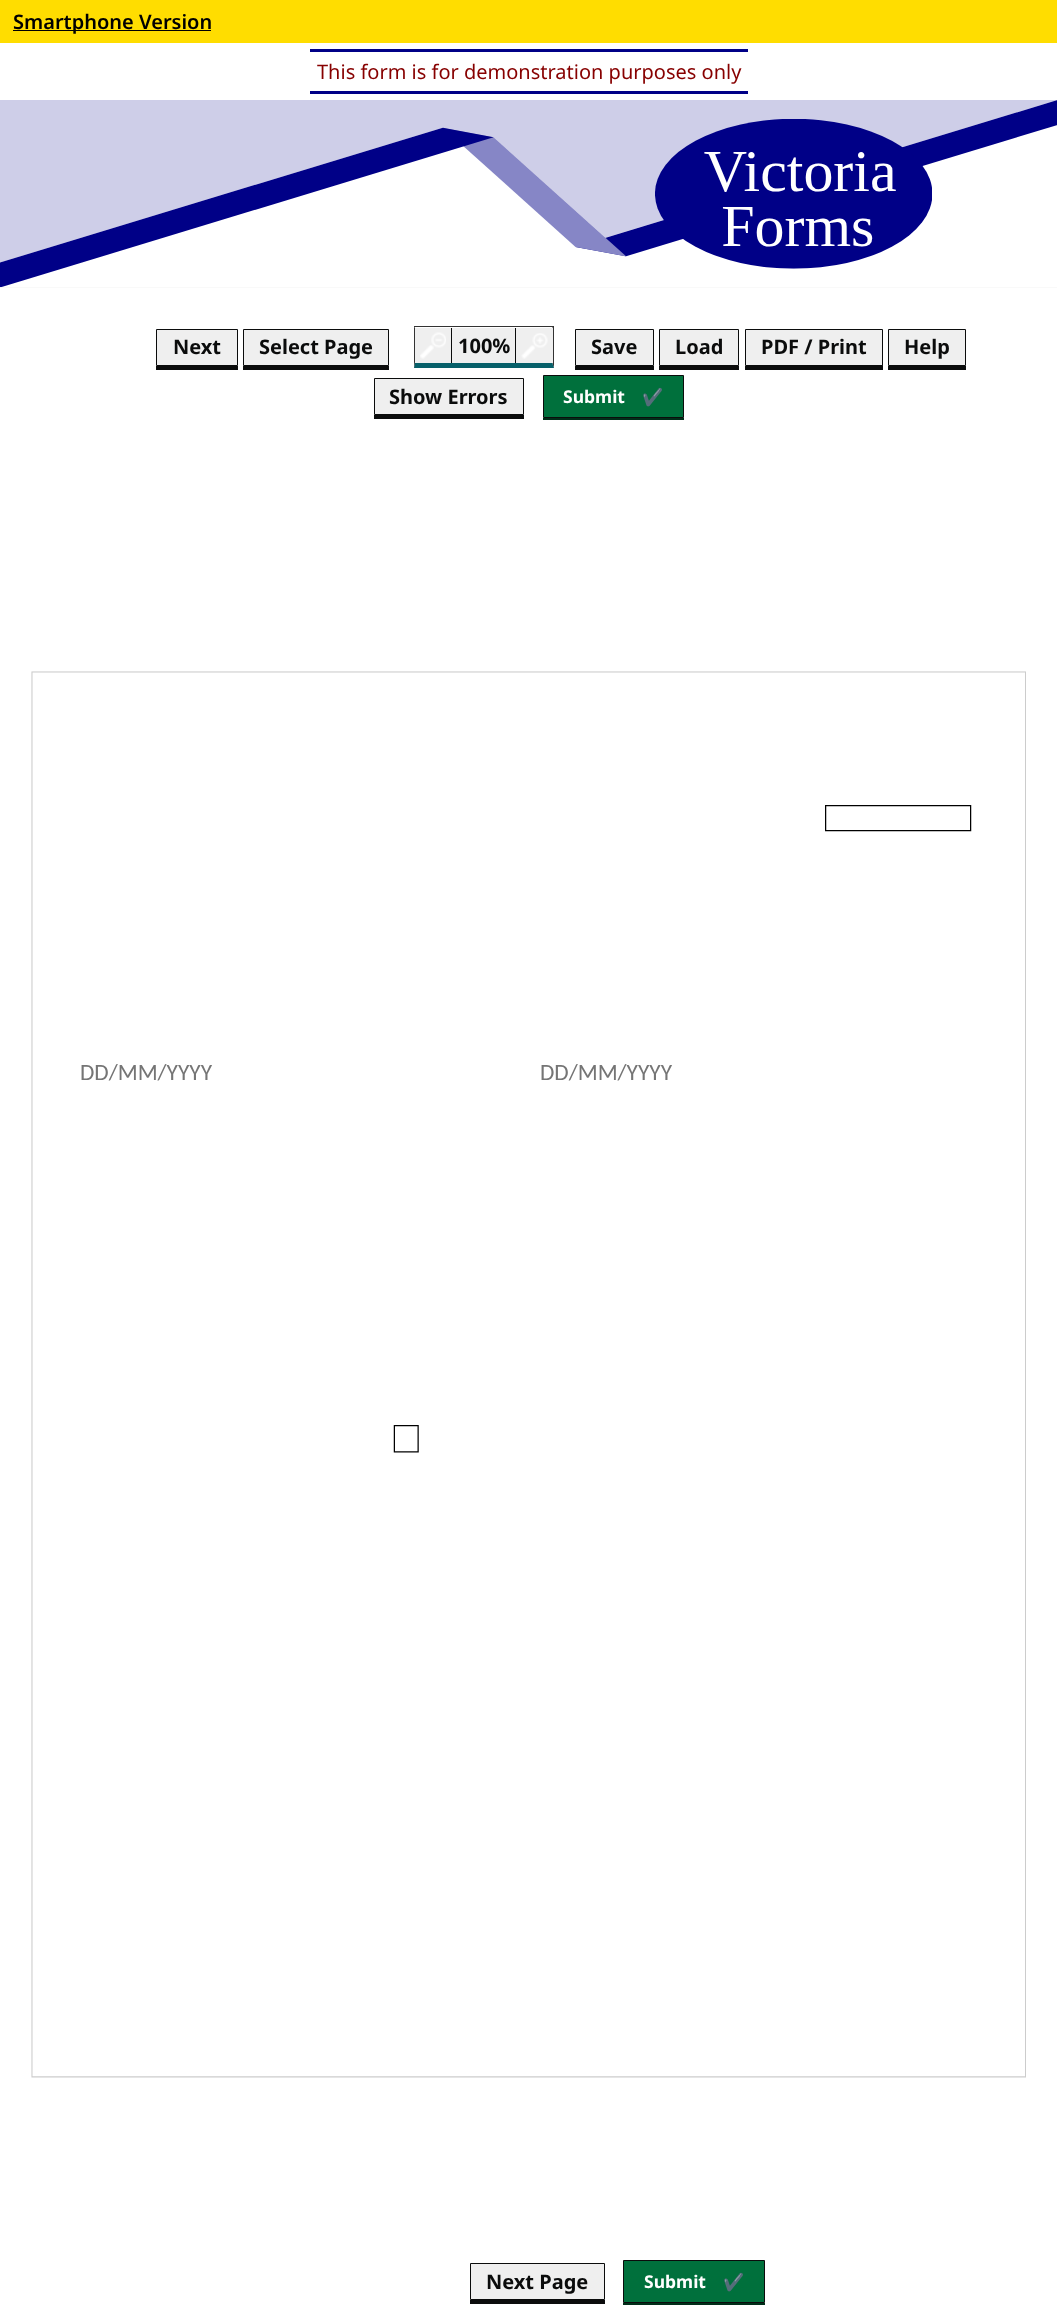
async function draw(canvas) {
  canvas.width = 1057;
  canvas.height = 2318;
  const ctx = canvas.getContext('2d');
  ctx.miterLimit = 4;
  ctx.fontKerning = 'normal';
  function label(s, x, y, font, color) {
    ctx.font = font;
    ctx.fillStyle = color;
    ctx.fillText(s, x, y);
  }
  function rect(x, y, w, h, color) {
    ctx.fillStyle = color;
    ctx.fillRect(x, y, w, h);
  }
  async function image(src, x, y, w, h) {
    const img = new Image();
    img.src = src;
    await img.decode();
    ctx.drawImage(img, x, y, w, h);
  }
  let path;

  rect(0, 0, 1057, 2318, '#fff');
  rect(0, 0, 1057, 43, '#fd0');
  rect(13, 30, 198, 1, '#000');
  label('Smartphone Version', 13, 29, '600 20px Noto Sans', '#000');
  rect(310, 49, 438, 3, '#000087');
  rect(310, 91, 438, 3, '#000087');
  label('This form is for demonstration purposes only', 317, 79, '20px Noto Sans', '#870000');
  await image('assets/img1.png', 0, 100, 1057, 188);
  ctx.fillStyle = '#0b0c0c';
  path = new Path2D('M156 333V370H238V333V366H156Z');
  ctx.fill(path);
  ctx.fillStyle = '#efefef';
  ctx.beginPath();
  ctx.rect(156.5, 329.5, 81, 36);
  ctx.fill();
  ctx.strokeStyle = '#0b0c0c';
  ctx.stroke();
  label('Next', 173, 354, 'bold 20px Noto Sans', '#0b0c0c');
  path = new Path2D('M243 366V370H389V333V366Z');
  ctx.fill(path);
  ctx.fillStyle = '#efefef';
  ctx.beginPath();
  ctx.rect(243.5, 329.5, 145, 36);
  ctx.fill();
  ctx.stroke();
  label('Select Page', 259, 354, 'bold 20px Noto Sans', '#0b0c0c');
  rect(414, 326, 140, 1, '#333');
  path = new Path2D('M554 326V368L552 362V328Z');
  ctx.fill(path);
  ctx.fillStyle = '#07606a';
  path = new Path2D('M554 368H414L415 362H552Z');
  ctx.fill(path);
  ctx.fillStyle = '#333';
  path = new Path2D('M414 368V326L415 328V362Z');
  ctx.fill(path);
  rect(415, 328, 36, 35, '#efefef');
  await image('assets/img2.png', 420, 332, 26, 27);
  rect(452, 328, 63, 35, '#efefef');
  rect(451, 328, 1, 35, '#0b0c0c');
  label('100%', 458, 353, 'bold 20px Noto Sans', '#0b0c0c');
  rect(516, 328, 37, 35, '#efefef');
  rect(515, 328, 1, 35, '#0b0c0c');
  await image('assets/img3.png', 521, 333, 27, 26);
  path = new Path2D('M575 366V370H654V333V366Z');
  ctx.fill(path);
  ctx.fillStyle = '#efefef';
  ctx.beginPath();
  ctx.rect(575.5, 329.5, 78, 36);
  ctx.fill();
  ctx.stroke();
  label('Save', 591, 354, 'bold 20px Noto Sans', '#0b0c0c');
  path = new Path2D('M659 366V370H739V333V366Z');
  ctx.fill(path);
  ctx.fillStyle = '#efefef';
  ctx.beginPath();
  ctx.rect(659.5, 329.5, 79, 36);
  ctx.fill();
  ctx.stroke();
  label('Load', 675, 354, 'bold 20px Noto Sans', '#0b0c0c');
  path = new Path2D('M745 366V370H883V333H882V366Z');
  ctx.fill(path);
  ctx.fillStyle = '#efefef';
  ctx.beginPath();
  ctx.rect(745.5, 329.5, 137, 36);
  ctx.fill();
  ctx.stroke();
  label('PDF / Print', 761, 354, 'bold 20px Noto Sans', '#0b0c0c');
  rect(888, 366, 78, 4, '#0b0c0c');
  ctx.fillStyle = '#efefef';
  ctx.beginPath();
  ctx.rect(888.5, 329.5, 77, 36);
  ctx.fill();
  ctx.stroke();
  label('Help', 904, 354, 'bold 20px Noto Sans', '#0b0c0c');
  path = new Path2D('M374 415V419H524V381V415Z');
  ctx.fill(path);
  ctx.fillStyle = '#efefef';
  ctx.beginPath();
  ctx.rect(374.5, 378.5, 149, 36);
  ctx.fill();
  ctx.stroke();
  label('Show Errors', 389, 404, 'bold 20px Noto Sans', '#0b0c0c');
  ctx.fillStyle = '#002d18';
  path = new Path2D('M543 418V420H684V378V418Z');
  ctx.fill(path);
  ctx.fillStyle = '#00703c';
  ctx.beginPath();
  ctx.rect(543.5, 375.5, 140, 42);
  ctx.fill();
  ctx.stroke();
  label('Submit', 563, 403, 'bold 17.5px Noto Sans', '#fff');
  label('✔', 642, 403, 'bold 17px Noto Color Emoji', '#fff');
  await image('assets/img4.png', 31, 671, 995, 1407);
  rect(470, 2300, 135, 4, '#0b0c0c');
  ctx.fillStyle = '#efefef';
  ctx.beginPath();
  ctx.rect(470.5, 2263.5, 134, 36);
  ctx.fill();
  ctx.stroke();
  label('Next Page', 486, 2289, 'bold 20px Noto Sans', '#0b0c0c');
  rect(623, 2303, 142, 2, '#002d18');
  ctx.fillStyle = '#00703c';
  ctx.beginPath();
  ctx.rect(623.5, 2260.5, 141, 42);
  ctx.fill();
  ctx.stroke();
  label('Submit', 644, 2288, 'bold 17.5px Noto Sans', '#fff');
  label('✔', 723, 2288, 'bold 17px Noto Color Emoji', '#fff');
}

draw(document.querySelector('canvas'));
